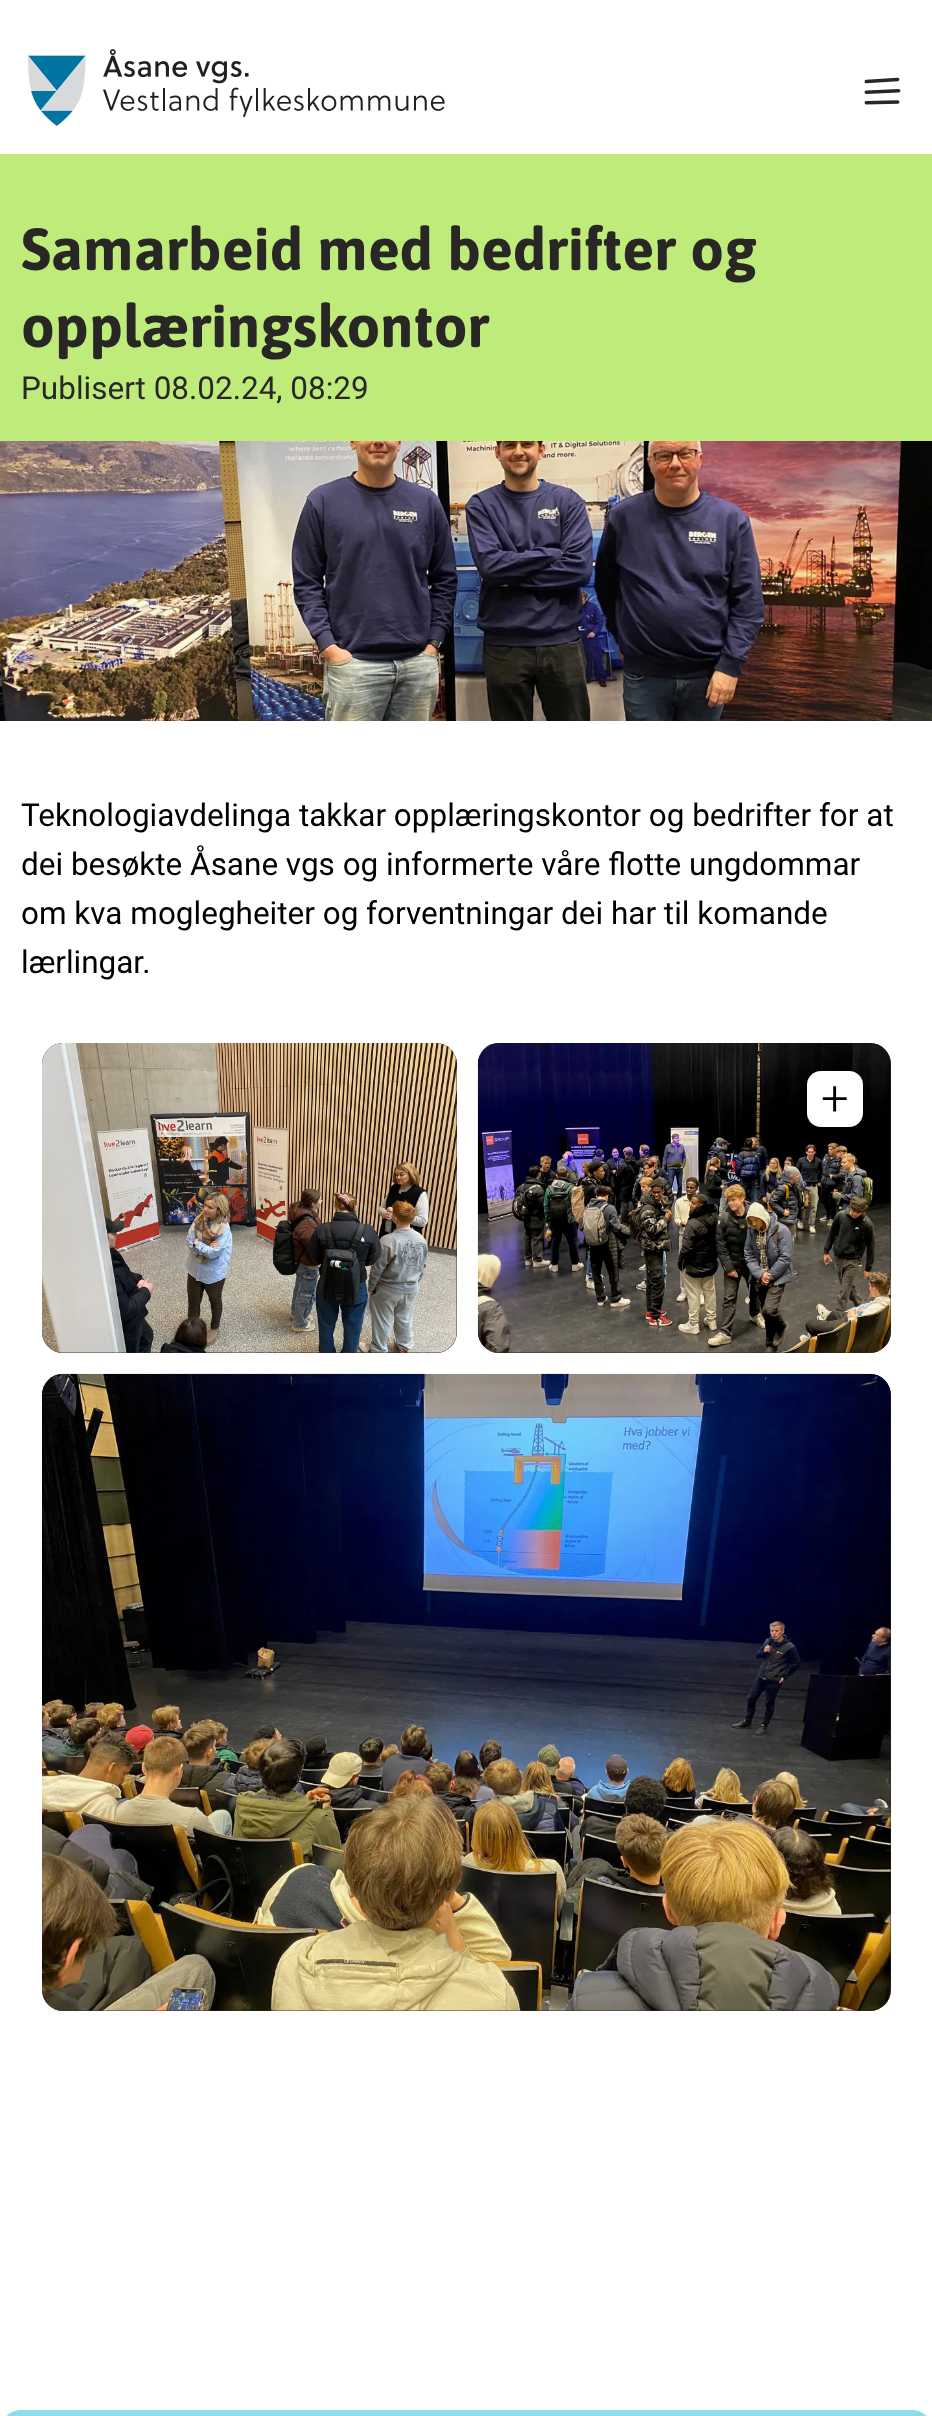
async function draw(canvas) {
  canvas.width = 932;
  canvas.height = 2416;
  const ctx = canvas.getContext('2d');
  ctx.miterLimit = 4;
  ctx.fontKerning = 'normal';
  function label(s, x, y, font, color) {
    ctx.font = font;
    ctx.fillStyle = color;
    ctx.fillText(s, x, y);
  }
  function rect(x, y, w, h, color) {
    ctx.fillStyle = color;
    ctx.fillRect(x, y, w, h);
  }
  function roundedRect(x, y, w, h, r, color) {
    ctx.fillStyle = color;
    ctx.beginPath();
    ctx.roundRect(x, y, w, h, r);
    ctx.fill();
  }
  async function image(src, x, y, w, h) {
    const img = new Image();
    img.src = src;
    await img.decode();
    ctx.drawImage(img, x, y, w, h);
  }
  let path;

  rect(0, 0, 932, 2416, '#fff');
  await image('assets/img1.png', 28, 49, 417, 77);
  await image('assets/img2.png', 864, 77, 37, 28);
  rect(0, 154, 932, 287, '#beeb7a');
  label('Samarbeid med bedrifter og', 21, 270, 'bold 59.5px Asap', '#292726');
  label('opplæringskontor', 21, 347, 'bold 59.5px Asap', '#292726');
  label('Publisert 08.02.24, 08:29', 21, 399, '31.5px Roboto', '#292726');
  await image('assets/img3.png', 0, 441, 932, 280);
  label('Teknologiavdelinga takkar opplæringskontor og bedrifter for at', 21, 826, '31.5px Roboto', '#000');
  label('dei besøkte Åsane vgs og informerte våre flotte ungdommar', 21, 875, '31.5px Roboto', '#000');
  label('om kva moglegheiter og forventningar dei har til komande', 21, 924, '31.5px Roboto', '#000');
  label('lærlingar.', 21, 973, '31.5px Roboto', '#000');
  roundedRect(42, 1043, 415, 310, 21, '#292726');
  await image('assets/img4.png', 42, 1043, 415, 310);
  roundedRect(478, 1043, 413, 310, 21, '#292726');
  await image('assets/img5.png', 477, 1043, 414, 310);
  roundedRect(807, 1071, 56, 56, 14, '#fff');
  label('+', 821, 1115, '300 49px Roboto', '#000');
  roundedRect(42, 1374, 849, 637, 21, '#292726');
  await image('assets/img6.png', 42, 1373, 849, 638);
  ctx.fillStyle = '#8ddeeb';
  path = new Path2D('M21 2410H912C923.5 2410 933 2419.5 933 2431V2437H0V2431C0 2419.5 9.5 2410 21 2410Z');
  ctx.fill(path);
}

draw(document.querySelector('canvas'));
